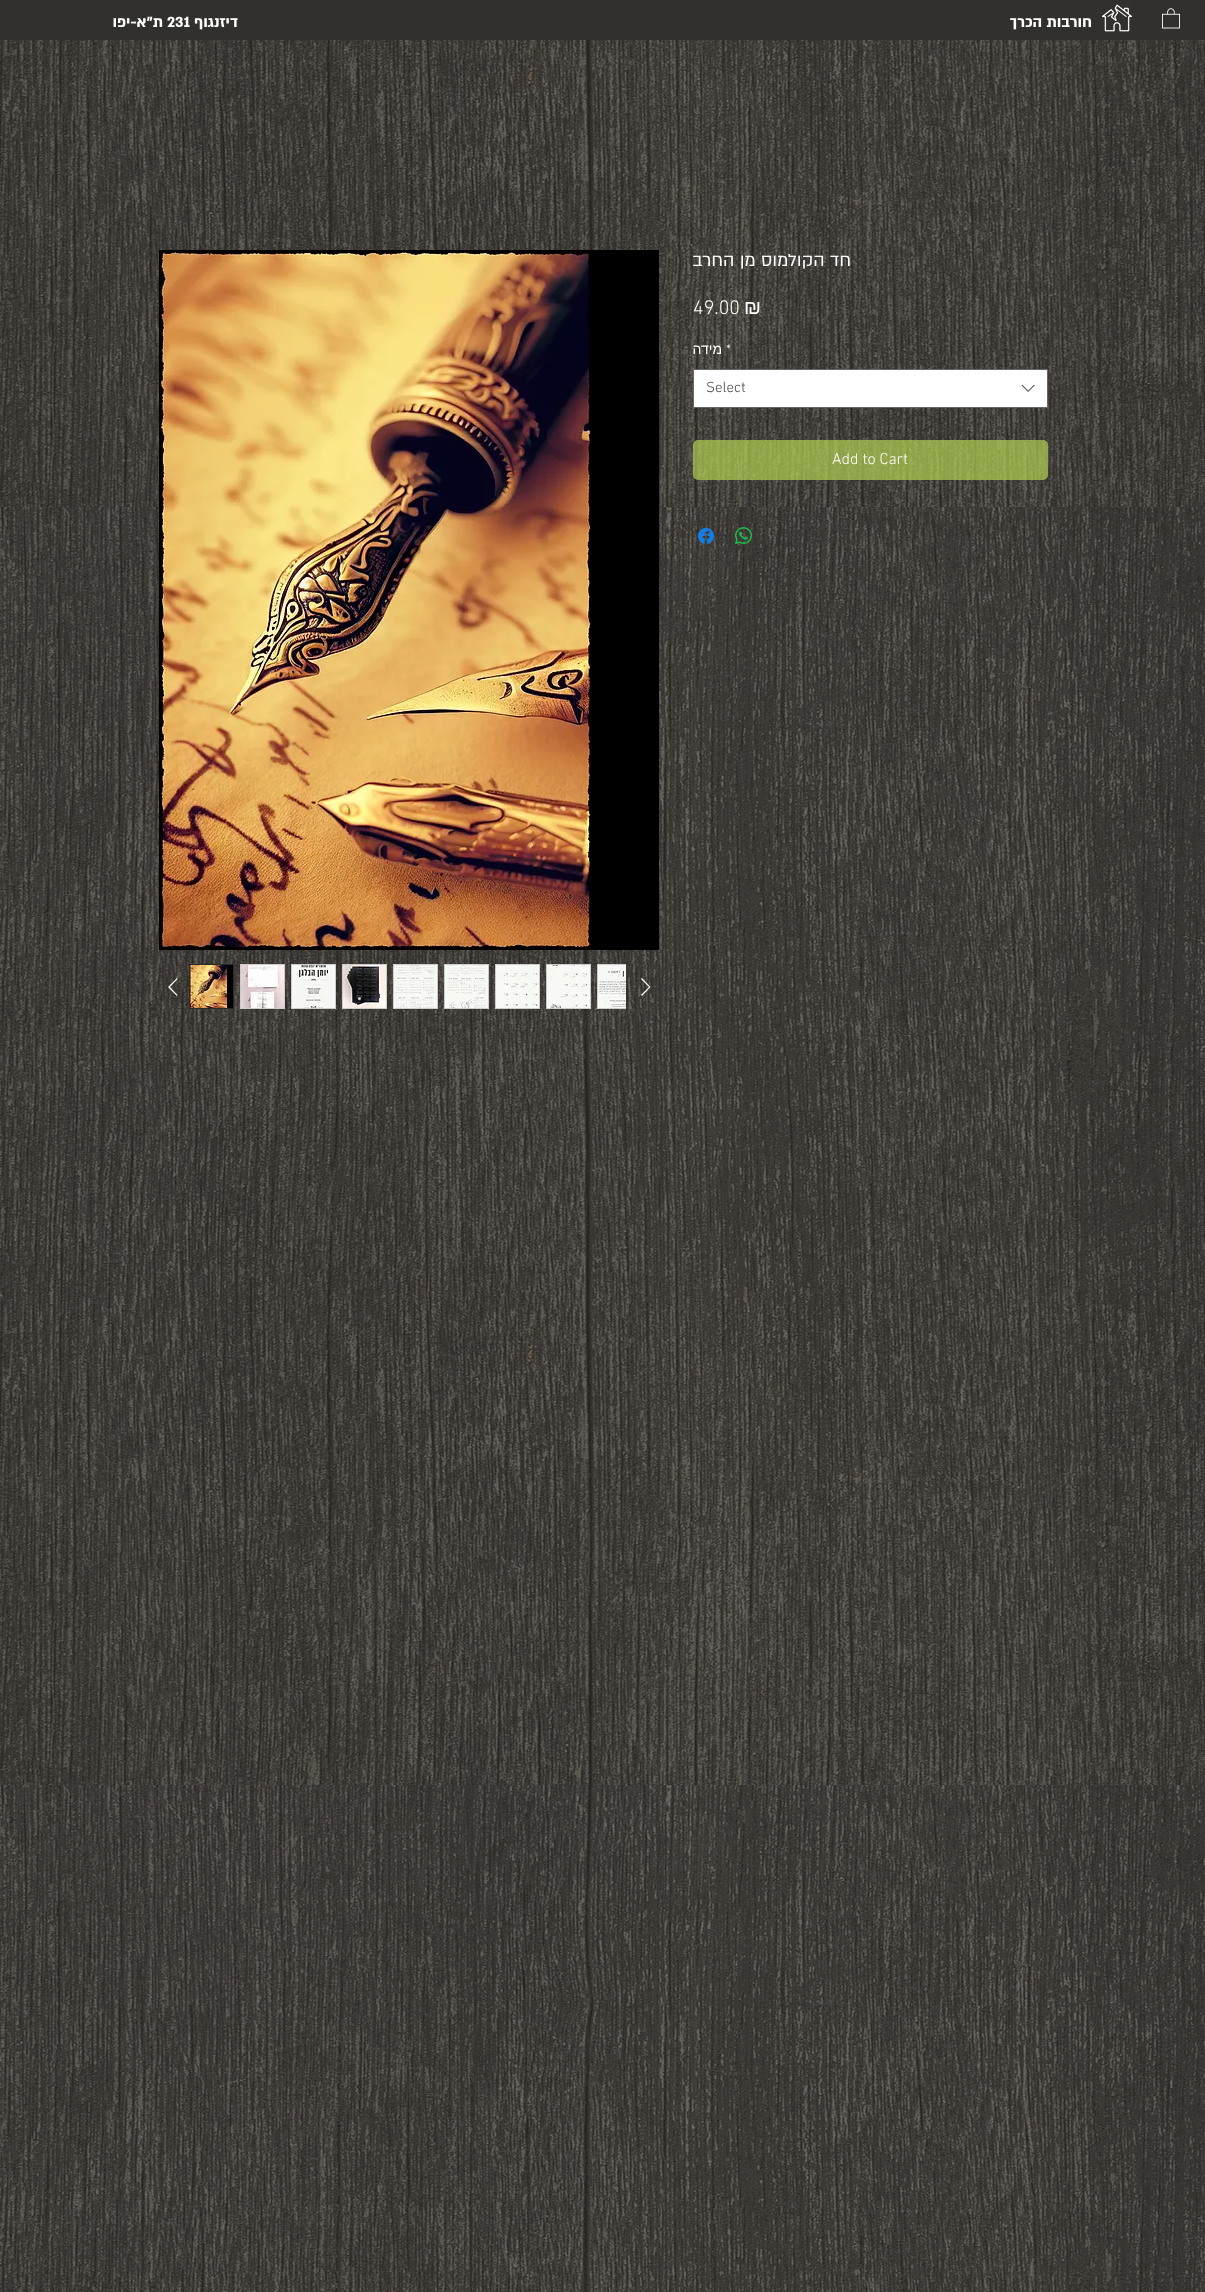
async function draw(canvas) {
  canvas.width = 1205;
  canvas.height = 2292;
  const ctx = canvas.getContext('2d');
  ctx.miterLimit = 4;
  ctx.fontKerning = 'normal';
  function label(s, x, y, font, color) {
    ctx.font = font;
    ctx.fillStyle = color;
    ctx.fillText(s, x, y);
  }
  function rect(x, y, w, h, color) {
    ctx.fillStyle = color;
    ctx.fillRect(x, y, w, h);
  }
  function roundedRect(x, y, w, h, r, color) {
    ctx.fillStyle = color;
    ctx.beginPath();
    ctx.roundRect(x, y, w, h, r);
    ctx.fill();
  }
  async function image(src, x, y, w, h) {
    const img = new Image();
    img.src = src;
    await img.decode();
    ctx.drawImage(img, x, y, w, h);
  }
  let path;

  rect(0, 0, 1205, 2292, '#32302d');
  await image('assets/img1.png', 1162, 8, 18, 21);
  await image('assets/img2.png', 1102, 4, 30, 28);
  ctx.direction = 'rtl';
  label('חורבות הכרך', 1092, 27, 'bold 17px "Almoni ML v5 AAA"', '#fff');
  label('דיזנגוף', 238, 27, 'bold 17px "Almoni ML v5 AAA"', '#fff');
  ctx.direction = 'ltr';
  label('231', 167, 27, 'bold 17px "Almoni ML v5 AAA"', '#fff');
  ctx.direction = 'rtl';
  label('ת"א-יפו', 163, 27, 'bold 17px "Almoni ML v5 AAA"', '#fff');
  await image('assets/img16.png', 0, 40, 1205, 2252);
  label('חד הקולמוס מן החרב', 851, 266, '20px "Almoni ML v5 AAA"', '#fff');
  ctx.direction = 'ltr';
  label('₪', 744, 314, '20px Liberation Sans', '#fff');
  label('49.00', 693, 314, '300 20px "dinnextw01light"', '#fff');
  label('*', 726, 354, '300 14px "dinnextw01light"', '#fff');
  ctx.direction = 'rtl';
  label('מידה', 722, 354, '14px Liberation Sans', '#fff');
  ctx.beginPath();
  ctx.rect(693.5, 369.5, 354, 38);
  ctx.fill();
  ctx.strokeStyle = '#666';
  ctx.stroke();
  await image('assets/img3.png', 1021, 384, 14, 8);
  ctx.direction = 'ltr';
  label('Select', 706, 392, '300 15px "dinnextw01light"', '#444');
  roundedRect(693, 440, 355, 40, 5, '#bada55a8');
  label('Add to Cart', 832, 464, '300 16px "dinnextw01light"', '#fff');
  await image('assets/img4.png', 735, 527, 17, 17);
  await image('assets/img5.png', 698, 528, 16, 16);
  await image('assets/img6.png', 159, 250, 500, 700);
  path = new Path2D('M642 978L650.5 987L642 996L641 995L649 987L641 979Z');
  ctx.fill(path, 'evenodd');
  rect(597, 964, 29, 45, '#ccc');
  await image('assets/img7.png', 598, 965, 28, 43);
  rect(546, 964, 45, 45, '#ccc');
  await image('assets/img8.png', 547, 965, 43, 43);
  rect(495, 964, 45, 45, '#ccc');
  await image('assets/img9.png', 496, 965, 43, 43);
  rect(444, 964, 45, 45, '#ccc');
  await image('assets/img10.png', 445, 965, 43, 43);
  rect(393, 964, 45, 45, '#ccc');
  await image('assets/img11.png', 394, 965, 43, 43);
  rect(342, 964, 45, 45, '#ccc');
  await image('assets/img12.png', 343, 965, 43, 43);
  rect(291, 964, 45, 45, '#ccc');
  await image('assets/img13.png', 292, 965, 43, 43);
  rect(240, 964, 45, 45, '#ccc');
  await image('assets/img14.png', 241, 965, 43, 43);
  ctx.strokeStyle = '#2a2a2a';
  ctx.strokeRect(189.5, 964.5, 44, 44);
  await image('assets/img15.png', 190, 965, 43, 43);
  ctx.fillStyle = '#fff';
  path = new Path2D('M177 978L177.5 979L170 987L177.5 995L177 996L168 987Z');
  ctx.fill(path, 'evenodd');
}

draw(document.querySelector('canvas'));
